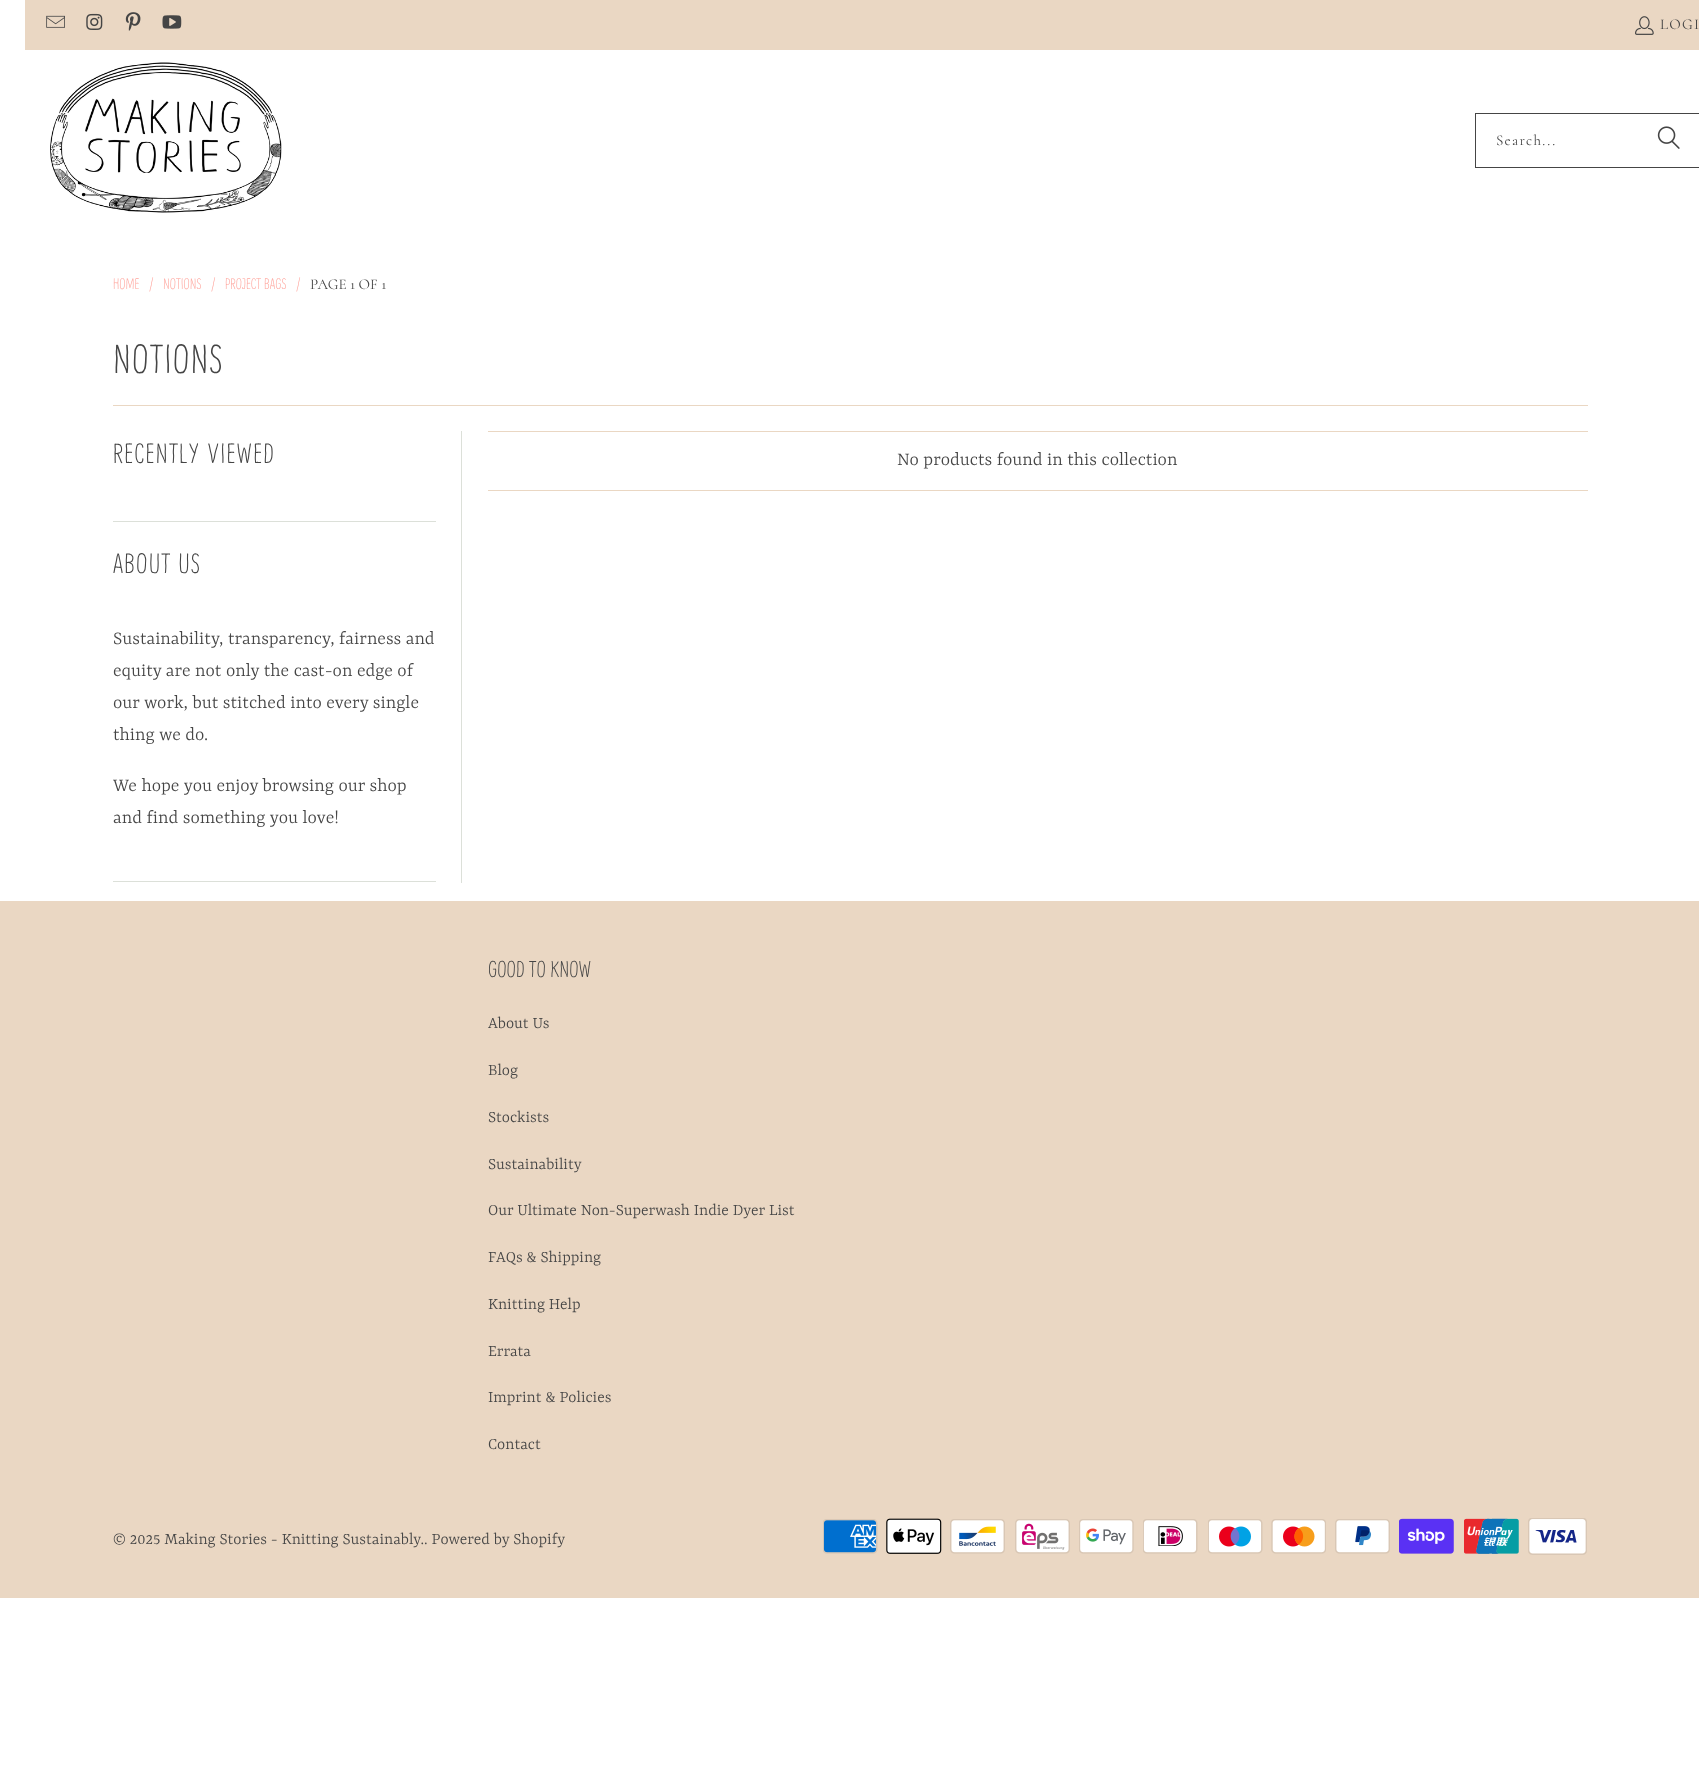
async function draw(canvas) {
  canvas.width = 1699;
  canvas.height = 1791;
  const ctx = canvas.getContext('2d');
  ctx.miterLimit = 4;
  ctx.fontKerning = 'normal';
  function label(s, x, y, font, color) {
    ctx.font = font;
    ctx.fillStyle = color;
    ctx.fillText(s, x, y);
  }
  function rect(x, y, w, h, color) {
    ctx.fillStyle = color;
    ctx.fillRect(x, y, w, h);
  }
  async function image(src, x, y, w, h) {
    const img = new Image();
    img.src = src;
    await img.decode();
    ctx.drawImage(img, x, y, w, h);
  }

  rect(0, 0, 1699, 1791, '#fff');
  rect(25, 0, 1674, 50, '#ead7c3');
  await image('assets/img1.png', 46, 15, 19, 13);
  await image('assets/img2.png', 86, 13, 17, 17);
  await image('assets/img3.png', 125, 12, 16, 19);
  await image('assets/img4.png', 162, 15, 20, 14);
  await image('assets/img5.png', 1635, 16, 19, 19);
  ctx.letterSpacing = '1.25px';
  label('LOGI', 1660, 29, '15px Cormorant', '#454545');
  await image('assets/img6.png', 50, 62, 232, 151);
  ctx.strokeStyle = '#454545';
  ctx.strokeRect(1475.5, 113.5, 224, 54);
  label('Search...', 1496, 145, '15px Cormorant', '#454545');
  await image('assets/img7.png', 1657, 126, 23, 23);
  ctx.letterSpacing = '0px';
  label('HOME', 113, 289, '300 15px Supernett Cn', '#ffa69e');
  label('/', 149, 289, '300 15px Supernett Cn', '#ffa69e');
  label('NOTIONS', 163, 289, '300 15px Supernett Cn', '#ffa69e');
  label('/', 211, 289, '300 15px Supernett Cn', '#ffa69e');
  label('PROJECT BAGS', 225, 289, '300 15px Supernett Cn', '#ffa69e');
  label('/', 296, 289, '300 15px Supernett Cn', '#ffa69e');
  label('PAGE 1 OF 1', 310, 289, '15px Cormorant', '#454545');
  ctx.letterSpacing = '1.25px';
  label('NOTIONS', 113, 373, '300 40px Supernett Cn', '#454545');
  rect(113, 405, 1475, 1, '#ead7c3');
  rect(461, 431, 1, 452, '#dce0d9');
  ctx.wordSpacing = '1px';
  label('RECENTLY VIEWED', 113, 463, '300 27.5px Supernett Cn', '#454545');
  rect(113, 521, 323, 1, '#dce0d9');
  ctx.wordSpacing = '0px';
  label('ABOUT US', 113, 573, '300 27.5px Supernett Cn', '#454545');
  ctx.letterSpacing = '0px';
  label('Sustainability, transparency, fairness and', 113, 644, '300 20px Rasa', '#454545');
  label('equity are not only the cast-on edge of', 113, 676, '300 20px Rasa', '#454545');
  label('our work, but stitched into every single', 113, 708, '300 20px Rasa', '#454545');
  label('thing we do.', 113, 740, '300 20px Rasa', '#454545');
  label('We hope you enjoy browsing our shop', 113, 791, '300 20px Rasa', '#454545');
  label('and find something you love!', 113, 823, '300 20px Rasa', '#454545');
  rect(113, 881, 323, 1, '#dce0d9');
  rect(488, 431, 1100, 1, '#ead7c3');
  rect(488, 490, 1100, 1, '#ead7c3');
  label('No products found in this collection', 897, 465, '300 20px Rasa', '#454545');
  rect(0, 901, 1699, 697, '#ead7c3');
  label('GOOD TO KNOW', 488, 977, '300 22.5px Supernett Cn', '#454545');
  label('About Us', 488, 1028, '300 17.5px Rasa', '#454545');
  label('Blog', 488, 1075, '300 17.5px Rasa', '#454545');
  label('Stockists', 488, 1122, '300 17.5px Rasa', '#454545');
  label('Sustainability', 488, 1169, '300 17.5px Rasa', '#454545');
  label('Our Ultimate Non-Superwash Indie Dyer List', 488, 1215, '300 17.5px Rasa', '#454545');
  label('FAQs & Shipping', 488, 1262, '300 17.5px Rasa', '#454545');
  label('Knitting Help', 488, 1309, '300 17.5px Rasa', '#454545');
  label('Errata', 488, 1356, '300 17.5px Rasa', '#454545');
  label('Imprint & Policies', 488, 1402, '300 17.5px Rasa', '#454545');
  label('Contact', 488, 1449, '300 17.5px Rasa', '#454545');
  label('© 2025 Making Stories - Knitting Sustainably.', 113, 1544, '300 17.5px Rasa', '#454545');
  label('. Powered by Shopify', 424, 1544, '300 17.5px Rasa', '#454545');
  await image('assets/img8.png', 823, 1519, 55, 35);
  await image('assets/img9.png', 886, 1518, 56, 36);
  await image('assets/img10.png', 950, 1519, 55, 35);
  await image('assets/img11.png', 1015, 1519, 55, 35);
  await image('assets/img12.png', 1079, 1519, 55, 35);
  await image('assets/img13.png', 1143, 1519, 55, 35);
  await image('assets/img14.png', 1208, 1519, 55, 35);
  await image('assets/img15.png', 1271, 1519, 55, 35);
  await image('assets/img16.png', 1335, 1519, 55, 35);
  await image('assets/img17.png', 1399, 1518, 55, 36);
  await image('assets/img18.png', 1464, 1518, 55, 36);
  await image('assets/img19.png', 1528, 1518, 59, 37);
}

draw(document.querySelector('canvas'));
